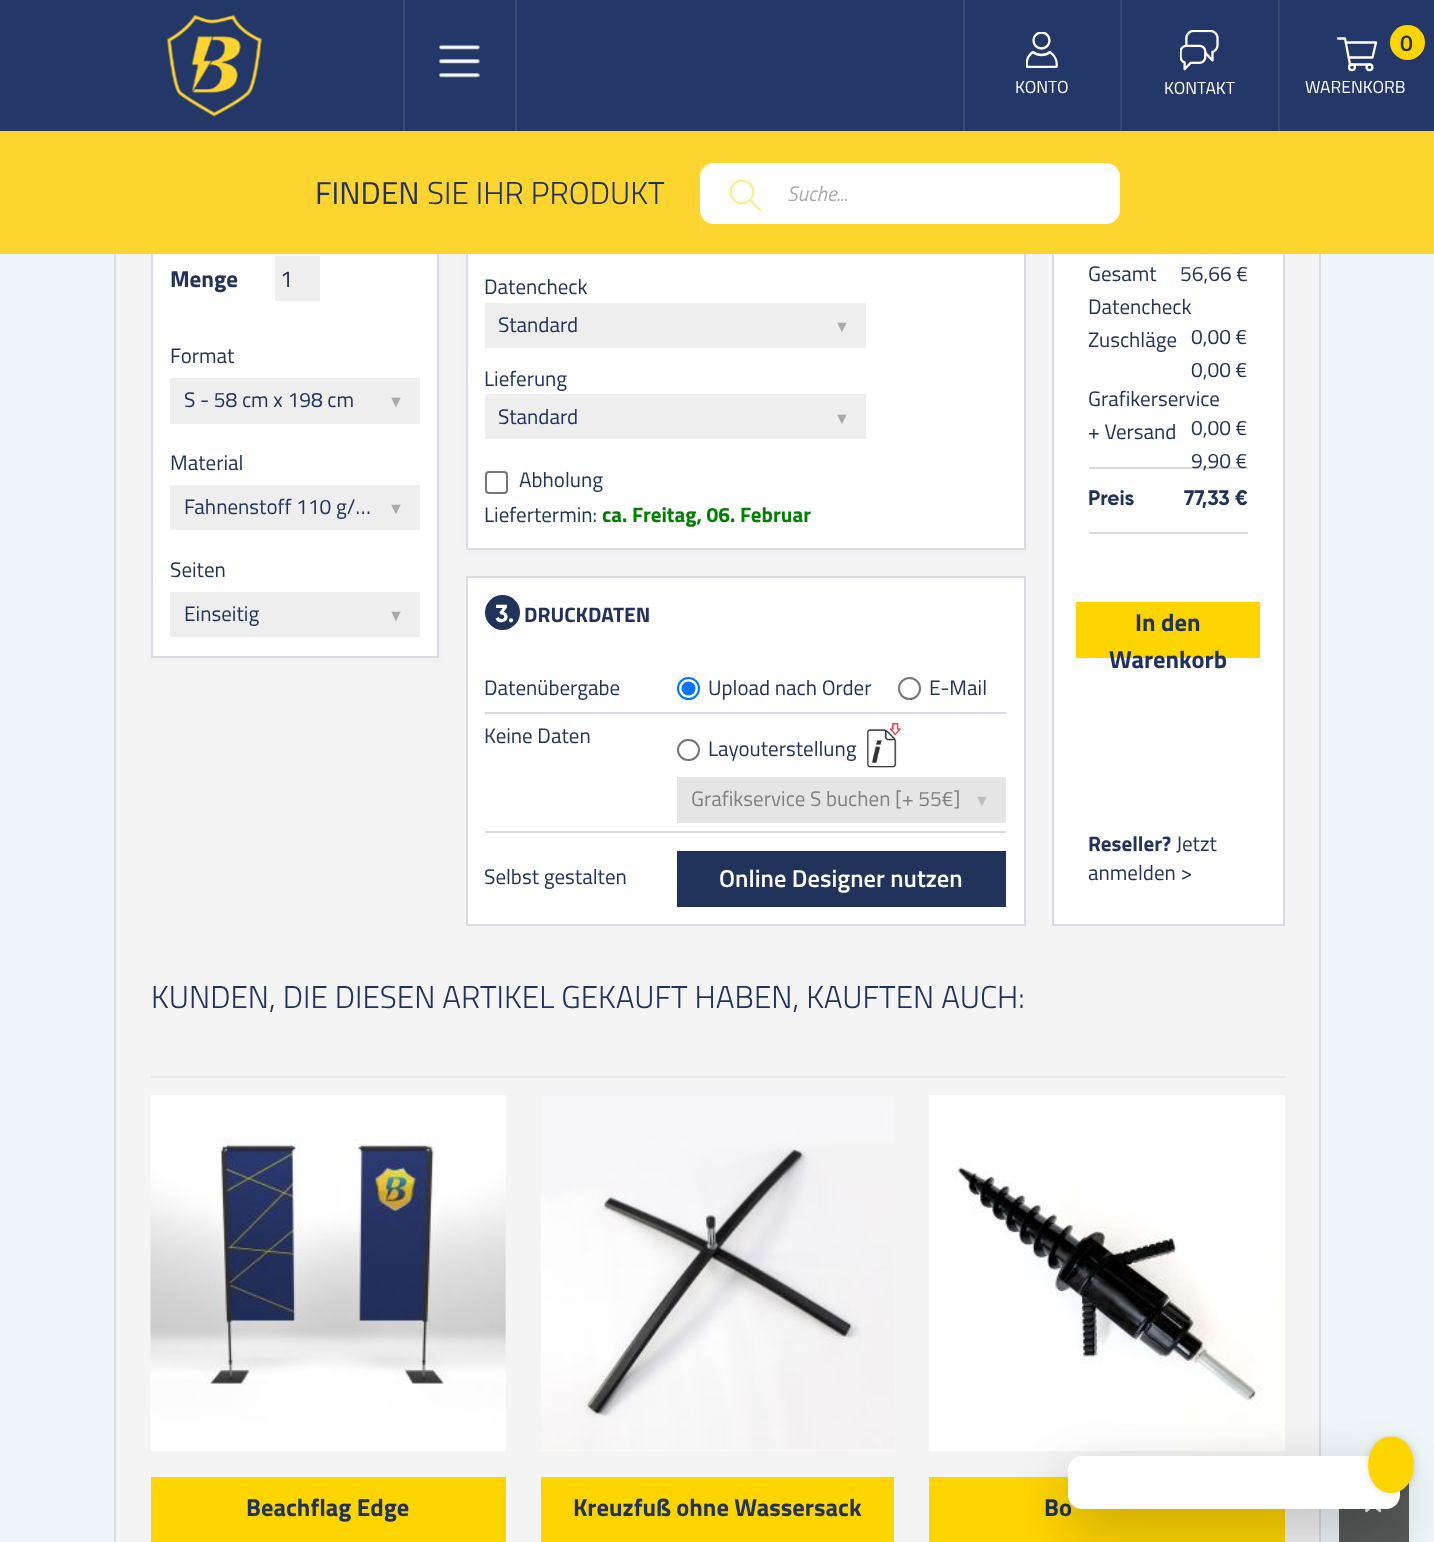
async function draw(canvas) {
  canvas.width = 1434;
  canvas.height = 1542;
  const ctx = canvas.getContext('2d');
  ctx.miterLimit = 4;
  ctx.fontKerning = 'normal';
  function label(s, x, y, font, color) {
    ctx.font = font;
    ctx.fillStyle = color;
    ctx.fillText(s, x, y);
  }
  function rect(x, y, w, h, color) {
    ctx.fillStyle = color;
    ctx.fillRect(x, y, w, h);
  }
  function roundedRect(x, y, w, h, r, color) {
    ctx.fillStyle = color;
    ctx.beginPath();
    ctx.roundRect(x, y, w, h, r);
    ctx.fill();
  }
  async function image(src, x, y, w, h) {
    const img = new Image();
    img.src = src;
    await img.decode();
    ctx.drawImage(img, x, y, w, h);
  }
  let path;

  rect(0, 0, 1434, 1542, '#eef6f9');
  rect(116, 254, 1203, 1288, '#f4f4f4');
  ctx.strokeStyle = '#dbd9e3';
  ctx.lineWidth = 2;
  ctx.strokeRect(115, -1, 1205, 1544);
  rect(0, 0, 1434, 131, '#233868');
  await image('assets/img1.png', 167, 15, 95, 102);
  rect(515, 0, 2, 131, '#3a4b70');
  rect(403, 0, 2, 131, '#3a4b70');
  await image('assets/img2.png', 439, 45, 41, 33);
  rect(963, 0, 2, 131, '#3a4b70');
  ctx.save();
  ctx.beginPath();
  ctx.rect(1026, 32, 33, 36);
  ctx.clip();
  ctx.beginPath();
  ctx.arc(1041.5, 40.5, 8, 0, 2 * Math.PI);
  ctx.strokeStyle = '#fff';
  ctx.lineWidth = 2.3;
  ctx.stroke();
  path = new Path2D('M1050 52C1045 56 1038 56 1033 52C1028 55.5 1026 61.5 1027 67H1056.5C1057.5 61.5 1055 55.5 1050 52Z');
  ctx.lineJoin = 'round';
  ctx.stroke(path);
  ctx.restore();
  label('KONTO', 1015, 93, '17.5px Titillium Web', '#fff');
  rect(1120, 0, 2, 131, '#3a4b70');
  await image('assets/img3.png', 1180, 30, 39, 41);
  label('KONTAKT', 1164, 94, '17.5px Titillium Web', '#fff');
  rect(1278, 0, 2, 131, '#3a4b70');
  path = new Path2D('M1338 38.5H1345L1350 64.5H1369.5');
  ctx.strokeStyle = '#fff';
  ctx.lineWidth = 2.3;
  ctx.lineCap = 'round';
  ctx.lineJoin = 'round';
  ctx.stroke(path);
  ctx.beginPath();
  ctx.arc(1369.5, 67.2, 2.9, 0, 2 * Math.PI);
  ctx.stroke();
  ctx.beginPath();
  ctx.arc(1352, 67.2, 2.9, 0, 2 * Math.PI);
  ctx.stroke();
  path = new Path2D('M1346 42.5H1376L1372.5 57.5H1349');
  ctx.stroke(path);
  ctx.fillStyle = '#ffd500';
  ctx.beginPath();
  ctx.arc(1407.5, 42.5, 17.5, 0, 2 * Math.PI);
  ctx.fill();
  label('0', 1400, 51, '600 23px Titillium Web', '#21325b');
  label('WARENKORB', 1305, 93, '17.5px Titillium Web', '#fff');
  ctx.fillStyle = '#eee';
  ctx.filter = 'blur(2px)';
  ctx.beginPath();
  ctx.rect(151, 173, 288, 487);
  ctx.fill();
  ctx.filter = 'none';
  rect(153, 254, 284, 402, '#fff');
  ctx.strokeStyle = '#dbd9e3';
  ctx.lineWidth = 2;
  ctx.lineJoin = 'miter';
  ctx.strokeRect(152, 173, 286, 484);
  ctx.fillStyle = '#eee';
  ctx.filter = 'blur(2px)';
  ctx.beginPath();
  ctx.rect(466, 173, 560, 378);
  ctx.fill();
  ctx.filter = 'none';
  rect(468, 254, 556, 294, '#fff');
  ctx.strokeRect(467, 173, 558, 376);
  rect(1054, 254, 229, 670, '#fff');
  ctx.strokeRect(1053, 173, 231, 752);
  rect(0, 131, 1434, 123, '#fed42f');
  label('FINDEN', 315, 204, '31.5px Titillium Web', '#21325b');
  label('SIE IHR PRODUKT', 427, 204, '300 31.5px Titillium Web', '#21325b');
  roundedRect(700, 163, 420, 61, 14, '#fff');
  rect(700, 161, 2, 70, '#ffffff1a');
  await image('assets/img4.png', 729, 179, 32, 33);
  label('Suche...', 787, 201, 'italic 21px Titillium Web', '#aaa');
  label('Menge', 170, 287, 'bold 23px Titillium Web', '#21325b');
  rect(275, 256, 45, 45, '#eee');
  label('1', 280, 287, '23px Titillium Web', '#21325b');
  label('Format', 170, 363, '21px Titillium Web', '#21325b');
  rect(170, 378, 250, 46, '#eee');
  label('S - 58 cm x 198 cm', 184, 407, '21px Titillium Web', '#21325b');
  label('▼', 388, 407, 'bold 16px Liberation Sans', '#aaa');
  label('Material', 170, 470, '21px Titillium Web', '#21325b');
  rect(170, 485, 250, 45, '#eee');
  label('Fahnenstoff 110 g/…', 184, 514, '21px Titillium Web', '#21325b');
  label('▼', 388, 514, 'bold 16px Liberation Sans', '#aaa');
  label('Seiten', 170, 577, '21px Titillium Web', '#21325b');
  rect(170, 592, 250, 45, '#eee');
  label('Einseitig', 184, 621, '21px Titillium Web', '#21325b');
  label('▼', 388, 621, 'bold 16px Liberation Sans', '#aaa');
  label('Datencheck', 484, 294, '21px Titillium Web', '#21325b');
  rect(485, 303, 381, 45, '#eee');
  label('Standard', 498, 332, '21px Titillium Web', '#21325b');
  label('▼', 834, 332, 'bold 16px Liberation Sans', '#aaa');
  label('Lieferung', 484, 386, '21px Titillium Web', '#21325b');
  rect(485, 394, 381, 45, '#eee');
  label('Standard', 498, 424, '21px Titillium Web', '#21325b');
  label('▼', 834, 424, 'bold 16px Liberation Sans', '#aaa');
  ctx.beginPath();
  ctx.roundRect(486, 472, 21, 21, 3);
  ctx.strokeStyle = '#767676';
  ctx.stroke();
  label('Abholung', 519, 487, '21px Titillium Web', '#21325b');
  label('Liefertermin:', 484, 522, '21px Titillium Web', '#21325b');
  label('ca. Freitag, 06. Februar', 602, 522, 'bold 21px Titillium Web', '#008000');
  ctx.fillStyle = '#fff';
  ctx.beginPath();
  ctx.rect(467, 577, 558, 348);
  ctx.fill();
  ctx.strokeStyle = '#dbd9e3';
  ctx.stroke();
  ctx.fillStyle = '#21325b';
  ctx.beginPath();
  ctx.arc(502.5, 612.5, 17.5, 0, 2 * Math.PI);
  ctx.fill();
  label('3.', 495, 622, '24.5px Gilroy', '#fff');
  label('DRUCKDATEN', 524, 622, 'bold 21px Titillium Web', '#21325b');
  rect(485, 712, 521, 2, '#dbd9e3');
  label('Datenübergabe', 484, 695, '21px Titillium Web', '#21325b');
  ctx.beginPath();
  ctx.arc(688.5, 688.5, 10.5, 0, 2 * Math.PI);
  ctx.strokeStyle = '#0075ff';
  ctx.stroke();
  ctx.fillStyle = '#0075ff';
  ctx.beginPath();
  ctx.arc(688.5, 688.5, 7, 0, 2 * Math.PI);
  ctx.fill();
  label('Upload nach Order', 708, 695, '21px Titillium Web', '#21325b');
  ctx.beginPath();
  ctx.arc(909.5, 688.5, 10.5, 0, 2 * Math.PI);
  ctx.strokeStyle = '#767676';
  ctx.stroke();
  label('E-Mail', 929, 695, '21px Titillium Web', '#21325b');
  rect(485, 831, 521, 2, '#dbd9e3');
  label('Keine Daten', 484, 743, '21px Titillium Web', '#21325b');
  ctx.beginPath();
  ctx.roundRect(678, 740, 21, 20, 10);
  ctx.stroke();
  label('Layouterstellung', 708, 756, '21px Titillium Web', '#21325b');
  await image('assets/img5.png', 867, 722, 34, 46);
  rect(677, 777, 329, 46, '#e5e5e5');
  label('Grafikservice S buchen [+ 55€]', 691, 806, '21px Titillium Web', '#808080');
  label('▼', 974, 806, 'bold 16px Liberation Sans', '#bcbcbc');
  label('Selbst gestalten', 484, 884, '21px Titillium Web', '#21325b');
  rect(677, 851, 329, 56, '#21325b');
  label('Online Designer nutzen', 719, 887, '600 24.5px Titillium Web', '#fff');
  label('Gesamt', 1088, 281, '21px Titillium Web', '#21325b');
  label('56,66 €', 1180, 281, '21px Titillium Web', '#21325b');
  label('Datencheck', 1088, 314, '21px Titillium Web', '#21325b');
  label('0,00 €', 1191, 344, '21px Titillium Web', '#21325b');
  label('Zuschläge', 1088, 347, '21px Titillium Web', '#21325b');
  label('0,00 €', 1191, 377, '21px Titillium Web', '#21325b');
  label('Grafikerservice', 1088, 406, '21px Titillium Web', '#21325b');
  label('0,00 €', 1191, 435, '21px Titillium Web', '#21325b');
  label('+ Versand', 1088, 439, '21px Titillium Web', '#21325b');
  rect(1089, 467, 159, 2, '#dbd9e3');
  label('9,90 €', 1191, 468, '21px Titillium Web', '#21325b');
  rect(1089, 532, 159, 2, '#dbd9e3');
  label('Preis', 1088, 505, '21px Gilroy', '#21325b');
  label('77,33 €', 1184, 505, '21px Gilroy', '#21325b');
  rect(1076, 602, 184, 56, '#ffd500');
  label('In den', 1135, 631, 'bold 24.5px Titillium Web', '#21325b');
  label('Warenkorb', 1109, 668, 'bold 24.5px Titillium Web', '#21325b');
  label('Reseller?', 1088, 851, 'bold 21px Titillium Web', '#21325b');
  label('Jetzt', 1176, 851, '21px Titillium Web', '#21325b');
  label('anmelden >', 1088, 880, '21px Titillium Web', '#21325b');
  rect(151, 1076, 1134, 2, '#e8e8e8');
  label('KUNDEN, DIE DIESEN ARTIKEL GEKAUFT HABEN, KAUFTEN AUCH:', 151, 1008, '300 31.5px Titillium Web', '#21325b');
  rect(151, 1096, 355, 355, '#fff');
  await image('assets/img6.png', 150, 1095, 356, 355);
  rect(151, 1477, 355, 65, '#ffd500');
  label('Beachflag Edge', 246, 1516, 'bold 24.5px Titillium Web', '#21325b');
  rect(541, 1450, 353, 1, '#fff');
  await image('assets/img7.png', 541, 1096, 353, 355);
  rect(541, 1477, 353, 65, '#ffd500');
  label('Kreuzfuß ohne Wassersack', 573, 1516, 'bold 24.5px Titillium Web', '#21325b');
  rect(929, 1096, 356, 355, '#fff');
  await image('assets/img8.png', 929, 1095, 356, 355);
  rect(929, 1477, 356, 65, '#ffd500');
  label('Bo', 1044, 1516, 'bold 24.5px Titillium Web', '#21325b');
  rect(1339, 1482, 70, 60, '#585959');
  await image('assets/img9.png', 1365, 1509, 17, 4);
  ctx.fillStyle = '#00000026';
  ctx.filter = 'blur(26px)';
  ctx.beginPath();
  ctx.roundRect(1068, 1474, 332, 52, 14);
  ctx.fill();
  ctx.filter = 'none';
  ctx.fillStyle = '#0000001a';
  ctx.filter = 'blur(35px)';
  ctx.beginPath();
  ctx.roundRect(1068, 1482, 332, 53, 14);
  ctx.fill();
  ctx.filter = 'none';
  roundedRect(1068, 1456, 332, 53, 14, '#fff');
  ctx.fillStyle = '#00000026';
  ctx.filter = 'blur(3.5px)';
  ctx.beginPath();
  ctx.roundRect(1369, 1437, 45, 56, 22.5);
  ctx.fill();
  ctx.filter = 'none';
  ctx.fillStyle = '#ffd500';
  ctx.beginPath();
  ctx.ellipse(1391, 1465, 23, 28, 0, 0, 2 * Math.PI);
  ctx.fill();
  path = new Path2D('M1391 1437.5C1420 1437.5 1420 1492 1391 1492C1362.5 1492 1362.5 1437.5 1391 1437.5Z');
  ctx.strokeStyle = '#ffd500';
  ctx.lineWidth = 1.8;
  ctx.lineCap = 'butt';
  ctx.stroke(path);
}

draw(document.querySelector('canvas'));
